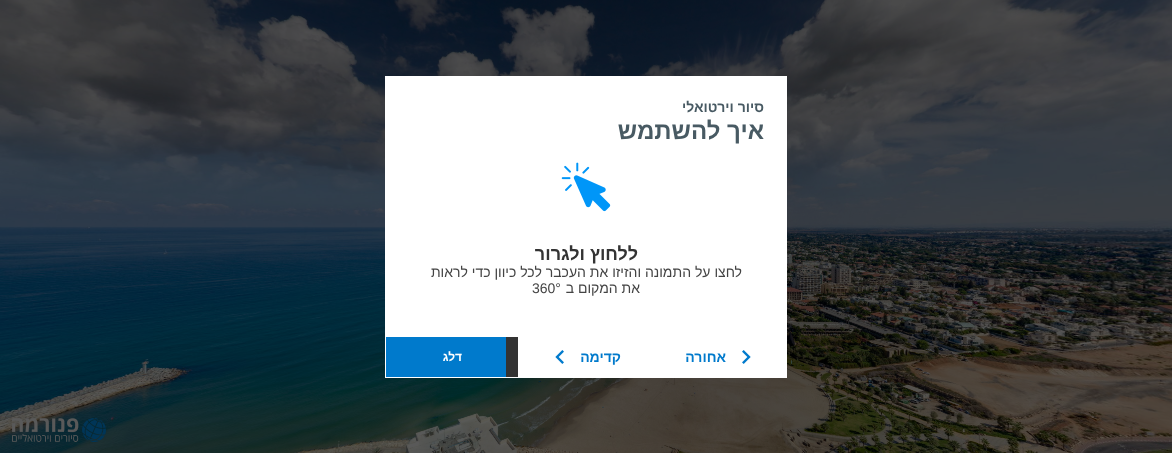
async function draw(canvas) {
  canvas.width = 1172;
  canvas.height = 453;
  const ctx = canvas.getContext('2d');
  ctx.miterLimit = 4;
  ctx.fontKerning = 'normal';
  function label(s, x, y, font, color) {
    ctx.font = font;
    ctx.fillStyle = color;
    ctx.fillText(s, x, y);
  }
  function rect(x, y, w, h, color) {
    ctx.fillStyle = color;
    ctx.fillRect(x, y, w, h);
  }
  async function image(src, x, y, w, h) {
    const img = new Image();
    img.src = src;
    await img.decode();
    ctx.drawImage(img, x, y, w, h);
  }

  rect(0, 0, 1172, 453, '#fff');
  await image('assets/img1.png', 0, 0, 1172, 453);
  rect(385, 76, 402, 302, '#fff');
  ctx.direction = 'rtl';
  label('סיור וירטואלי', 764, 112, 'bold 14px Liberation Sans', '#485a63');
  label('איך להשתמש', 764, 139, 'bold 24px Liberation Sans', '#485a63');
  await image('assets/img2.png', 561, 162, 50, 50);
  label('ללחוץ ולגרור', 638, 260, 'bold 18px Liberation Sans', '#333');
  label('לחצו על התמונה והזיזו את העכבר לכל כיוון כדי לראות', 742, 277, '14px Liberation Sans', '#444');
  label('את המקום ב', 640, 293, '14px Liberation Sans', '#444');
  ctx.direction = 'ltr';
  label('360°', 532, 293, '14px Liberation Sans', '#444');
  await image('assets/img3.png', 742, 350, 9, 14);
  ctx.direction = 'rtl';
  label('אחורה', 726, 362, 'bold 14px Liberation Sans', '#007acc');
  label('קדימה', 621, 362, 'bold 14px Liberation Sans', '#007acc');
  await image('assets/img4.png', 555, 350, 9, 14);
  rect(386, 337, 120, 40, '#007acc');
  rect(506, 337, 12, 40, '#333');
  label('דלג', 462, 361, 'bold 12px Liberation Sans', '#fff');
  await image('assets/img5.png', 12, 418, 94, 24);
}

draw(document.querySelector('canvas'));
